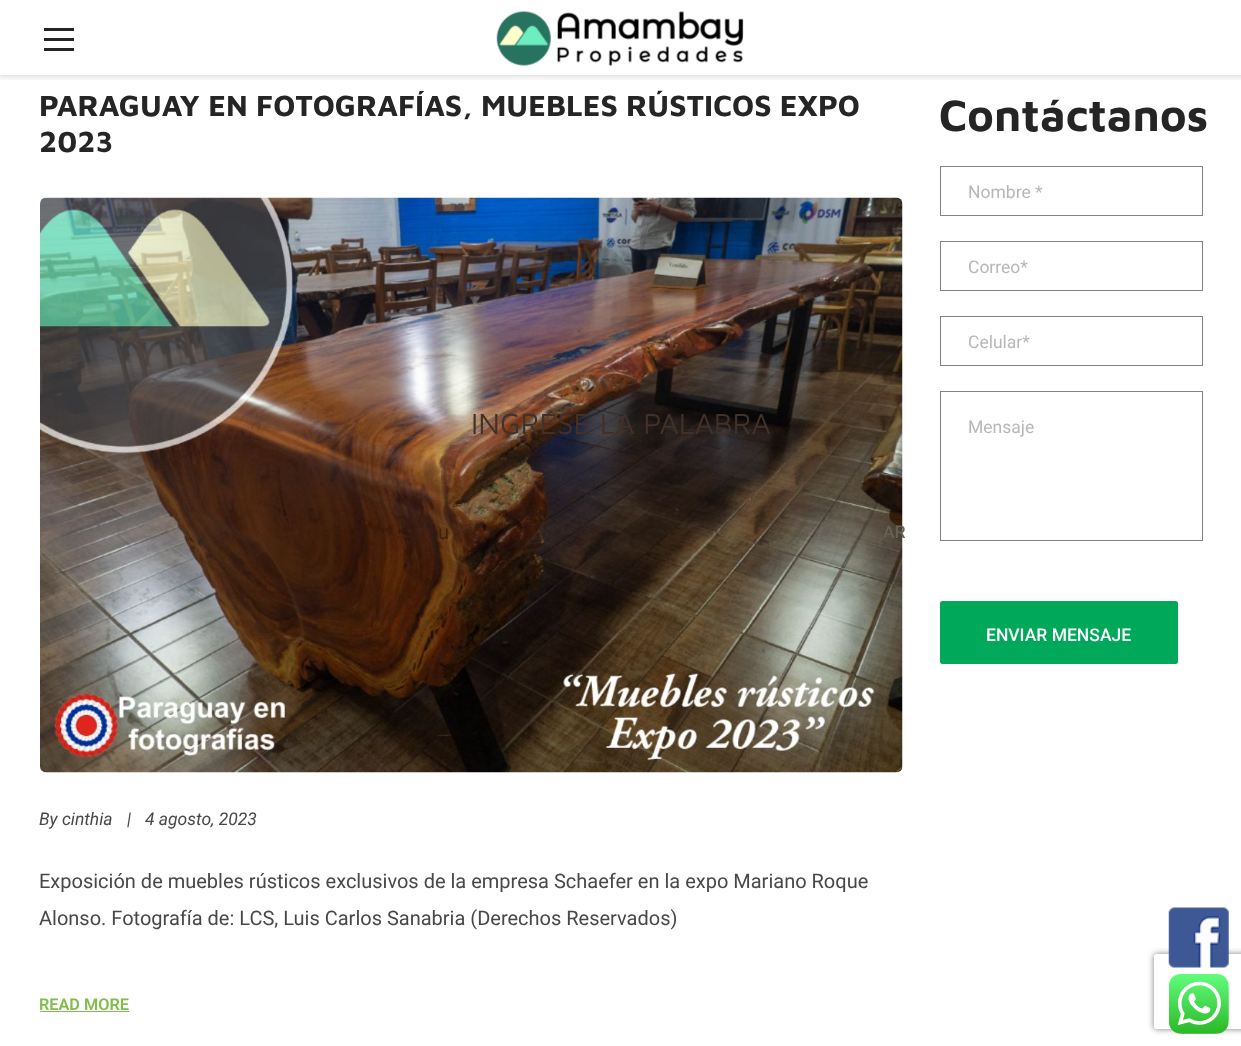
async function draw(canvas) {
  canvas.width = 1241;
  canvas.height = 1046;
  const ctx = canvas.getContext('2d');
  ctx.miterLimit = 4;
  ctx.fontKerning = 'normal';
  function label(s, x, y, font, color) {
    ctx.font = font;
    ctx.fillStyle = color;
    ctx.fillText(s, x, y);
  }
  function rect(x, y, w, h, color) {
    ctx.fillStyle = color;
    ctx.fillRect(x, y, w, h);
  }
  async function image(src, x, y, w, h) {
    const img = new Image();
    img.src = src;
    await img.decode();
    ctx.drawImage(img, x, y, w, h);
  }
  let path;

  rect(0, 0, 1241, 1046, '#fff');
  ctx.save();
  ctx.beginPath();
  ctx.rect(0, 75, 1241, 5);
  ctx.clip();
  ctx.fillStyle = '#0000001a';
  ctx.filter = 'blur(2px)';
  ctx.beginPath();
  ctx.rect(-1, -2, 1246, 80);
  ctx.fill();
  ctx.filter = 'none';
  ctx.restore();
  rect(44, 28, 30, 3, '#252525');
  rect(44, 38, 30, 3, '#252525');
  rect(44, 48, 30, 3, '#252525');
  await image('assets/img1.png', 496, 11, 248, 55);
  label('PARAGUAY EN FOTOGRAFÍAS, MUEBLES RÚSTICOS EXPO', 39, 116, 'bold 30px Maven Pro', '#252525');
  label('2023', 39, 152, 'bold 30px Maven Pro', '#252525');
  await image('assets/img2.png', 40, 197, 863, 576);
  label('By cinthia', 39, 825, 'italic 17.5px Roboto', '#484848');
  label('|', 127, 825, 'italic 17.5px Roboto', '#484848');
  label('4 agosto, 2023', 145, 825, 'italic 17.5px Roboto', '#484848');
  label('Exposición de muebles rústicos exclusivos de la empresa Schaefer en la expo Mariano Roque', 39, 888, '20px Roboto', '#484848');
  label('Alonso. Fotografía de: LCS, Luis Carlos Sanabria (Derechos Reservados)', 39, 925, '20px Roboto', '#484848');
  label('READ MORE', 39, 1010, '600 16.25px Roboto', '#82bb4e');
  rect(40, 1011, 89, 1, '#82bb4e');
  label('Contáctanos', 939, 131, 'bold 45px Maven Pro', '#252525');
  ctx.strokeStyle = '#838383';
  ctx.strokeRect(940.5, 166.5, 262, 49);
  label('Nombre *', 968, 198, '17.5px Roboto', '#b7b7b7');
  ctx.strokeRect(940.5, 241.5, 262, 49);
  label('Correo*', 968, 273, '17.5px Roboto', '#b7b7b7');
  ctx.strokeRect(940.5, 316.5, 262, 49);
  label('Celular*', 968, 348, '17.5px Roboto', '#b7b7b7');
  ctx.strokeRect(940.5, 391.5, 262, 149);
  label('Mensaje', 968, 433, '17.5px Roboto', '#b7b7b7');
  ctx.fillStyle = '#00a859';
  ctx.beginPath();
  ctx.roundRect(941.5, 602.5, 235, 60, 1);
  ctx.fill();
  ctx.strokeStyle = '#00a859';
  ctx.lineWidth = 3;
  ctx.stroke();
  label('ENVIAR MENSAJE', 986, 641, '500 17.5px Roboto', '#fff');
  label('INGRESE LA PALABRA', 471, 434, '30px Maven Pro', '#423129');
  label('u', 438, 539, '20px Roboto', '#401f0e');
  label('AR', 883, 538, '500 17.5px Roboto', '#676053');
  ctx.save();
  path = new Path2D('M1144 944H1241V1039H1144ZM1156.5 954H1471.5C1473 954 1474 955 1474 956.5V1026.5C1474 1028 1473 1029 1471.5 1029H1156.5C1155 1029 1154 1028 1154 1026.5V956.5C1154 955 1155 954 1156.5 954Z');
  ctx.clip(path, 'evenodd');
  ctx.fillStyle = '#808080';
  ctx.filter = 'blur(3px)';
  ctx.beginPath();
  ctx.roundRect(1154, 954, 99, 75, 2.5);
  ctx.fill();
  ctx.filter = 'none';
  ctx.restore();
  await image('assets/img3.png', 1168, 907, 61, 61);
  await image('assets/img4.png', 1169, 974, 60, 60);
}

draw(document.querySelector('canvas'));
